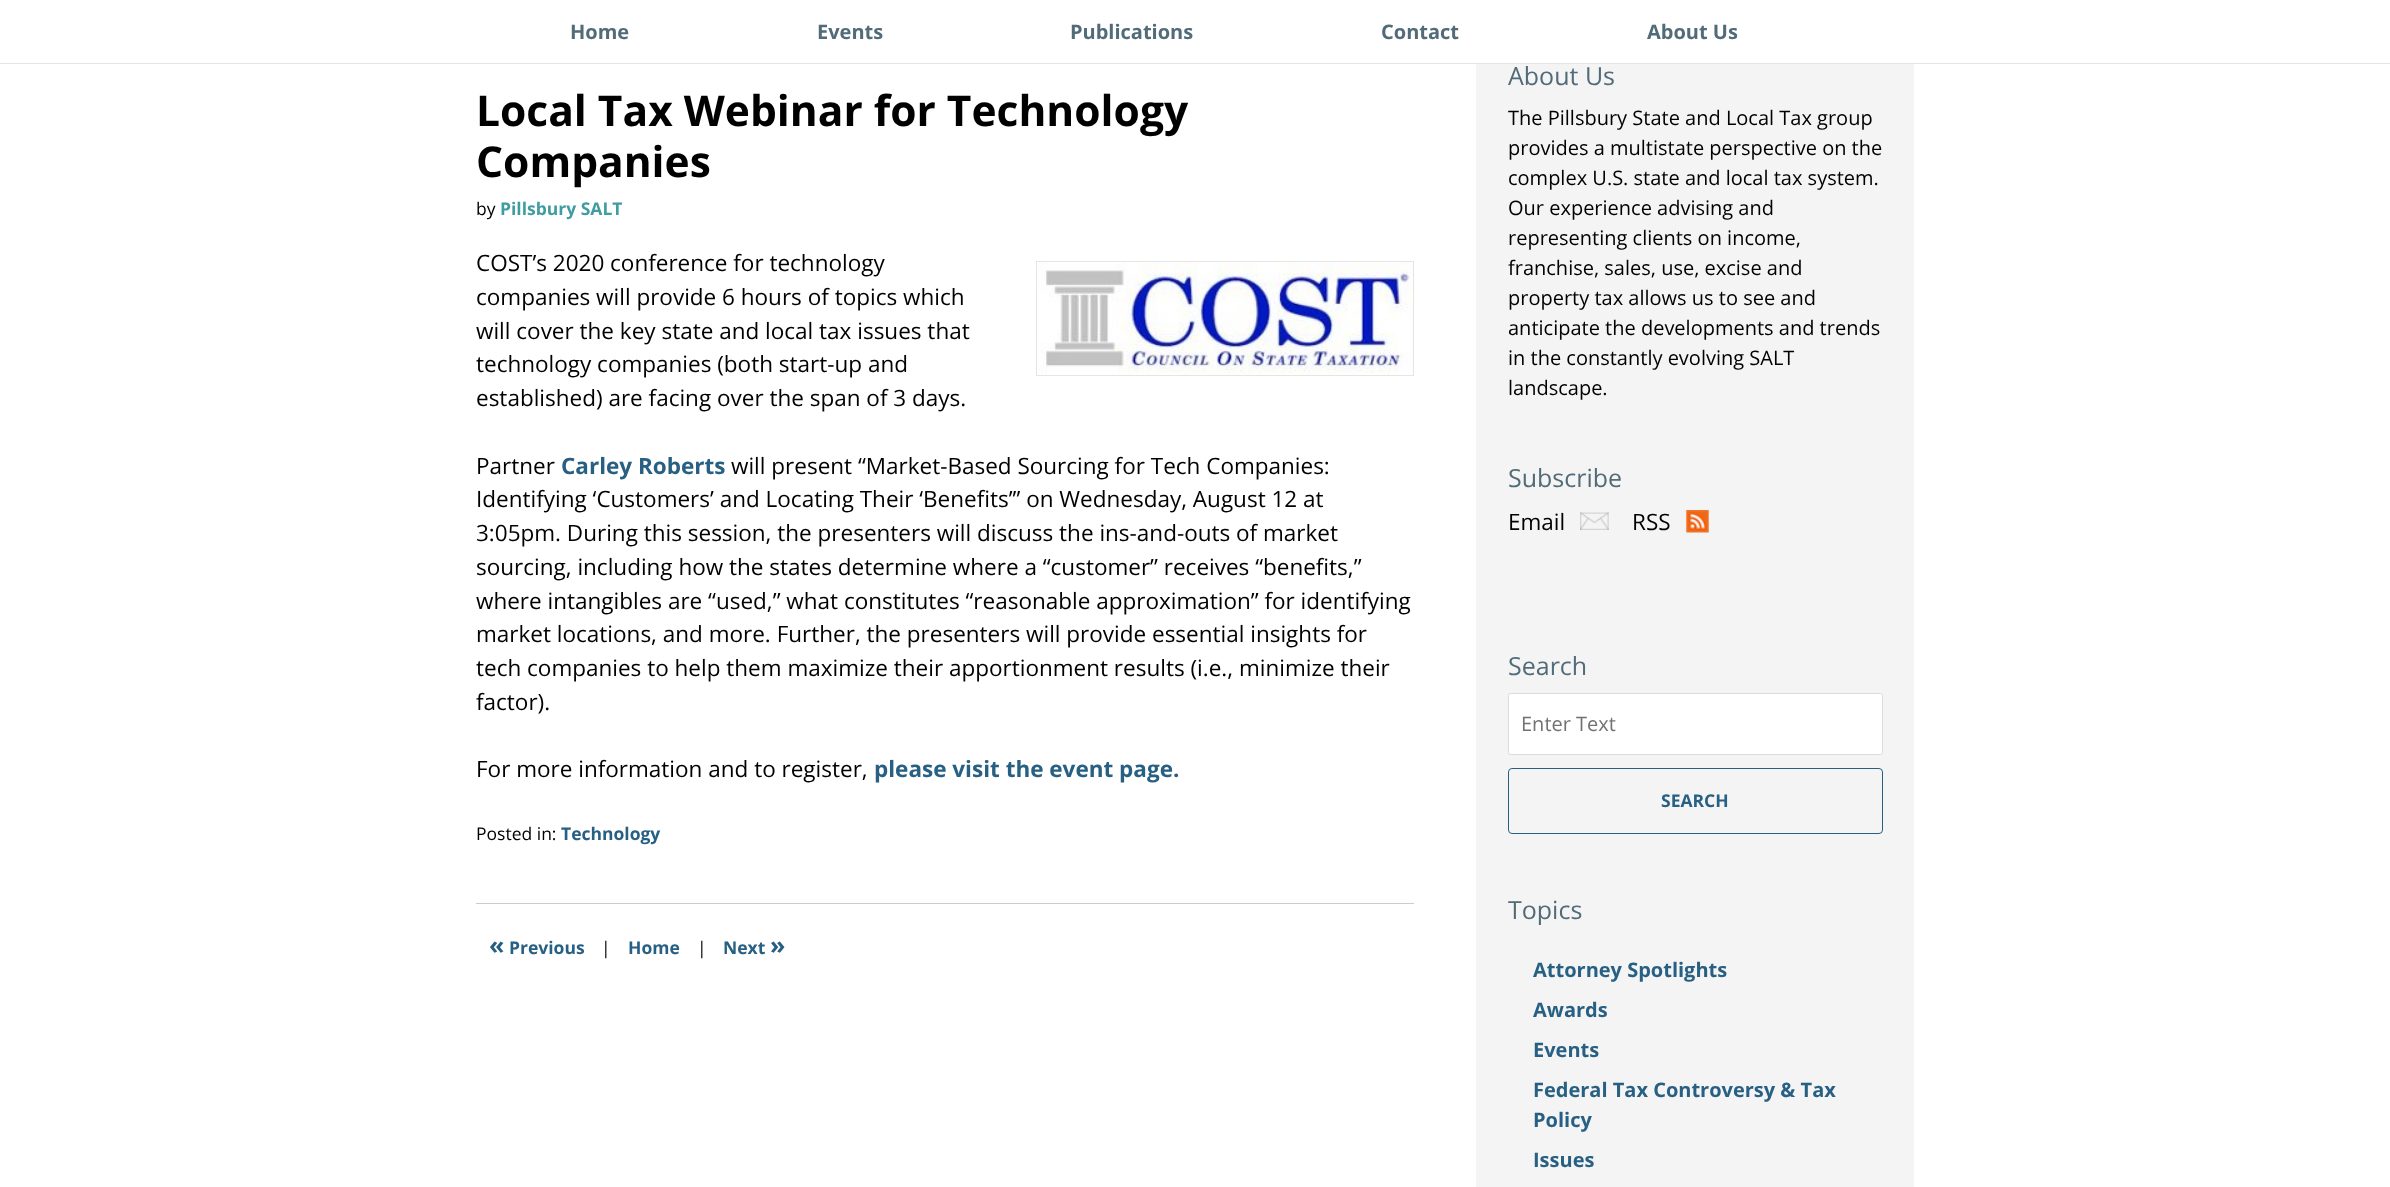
async function draw(canvas) {
  canvas.width = 2390;
  canvas.height = 1187;
  const ctx = canvas.getContext('2d');
  ctx.miterLimit = 4;
  ctx.fontKerning = 'normal';
  function label(s, x, y, font, color) {
    ctx.font = font;
    ctx.fillStyle = color;
    ctx.fillText(s, x, y);
  }
  function rect(x, y, w, h, color) {
    ctx.fillStyle = color;
    ctx.fillRect(x, y, w, h);
  }
  async function image(src, x, y, w, h) {
    const img = new Image();
    img.src = src;
    await img.decode();
    ctx.drawImage(img, x, y, w, h);
  }

  rect(0, 0, 2390, 1187, '#fff');
  rect(0, 63, 2390, 1, '#e5e5e5');
  label('Home', 570, 39, 'bold 20px Open Sans', '#526b78');
  label('Events', 817, 39, 'bold 20px Open Sans', '#526b78');
  label('Publications', 1070, 39, 'bold 20px Open Sans', '#526b78');
  label('Contact', 1381, 39, 'bold 20px Open Sans', '#526b78');
  label('About Us', 1647, 39, 'bold 20px Open Sans', '#526b78');
  rect(1476, 64, 438, 1123, '#f4f4f4');
  rect(476, 903, 938, 1, '#ccc');
  label('Local Tax Webinar for Technology', 476, 126, 'bold 42.5px Open Sans', '#000');
  label('Companies', 476, 177, 'bold 42.5px Open Sans', '#000');
  label('by', 476, 215, '17.5px Open Sans', '#000');
  label('Pillsbury SALT', 500, 215, 'bold 17.5px Open Sans', '#3f9da1');
  label('COST’s 2020 conference for technology', 476, 271, '22.5px Open Sans', '#000');
  ctx.strokeStyle = '#e5e5e5';
  ctx.strokeRect(1036.5, 261.5, 377, 114);
  await image('assets/img1.png', 1039, 262, 374, 113);
  label('companies will provide 6 hours of topics which', 476, 305, '22.5px Open Sans', '#000');
  label('will cover the key state and local tax issues that', 476, 339, '22.5px Open Sans', '#000');
  label('technology companies (both start-up and', 476, 372, '22.5px Open Sans', '#000');
  label('established) are facing over the span of 3 days.', 476, 406, '22.5px Open Sans', '#000');
  label('Partner', 476, 474, '22.5px Open Sans', '#000');
  label('Carley Roberts', 561, 474, 'bold 22.5px Open Sans', '#286084');
  label('will present “Market-Based Sourcing for Tech Companies:', 731, 474, '22.5px Open Sans', '#000');
  label('Identifying ‘Customers’ and Locating Their ‘Benefits’” on Wednesday, August 12 at', 476, 507, '22.5px Open Sans', '#000');
  label('3:05pm. During this session, the presenters will discuss the ins-and-outs of market', 476, 541, '22.5px Open Sans', '#000');
  label('sourcing, including how the states determine where a “customer” receives “benefits,”', 476, 575, '22.5px Open Sans', '#000');
  label('where intangibles are “used,” what constitutes “reasonable approximation” for identifying', 476, 609, '22.5px Open Sans', '#000');
  label('market locations, and more. Further, the presenters will provide essential insights for', 476, 642, '22.5px Open Sans', '#000');
  label('tech companies to help them maximize their apportionment results (i.e., minimize their', 476, 676, '22.5px Open Sans', '#000');
  label('factor).', 476, 710, '22.5px Open Sans', '#000');
  label('For more information and to register,', 476, 777, '22.5px Open Sans', '#000');
  label('please visit the event page.', 874, 777, 'bold 22.5px Open Sans', '#286084');
  label('Posted in:', 476, 840, '17.5px Open Sans', '#000');
  label('Technology', 561, 840, 'bold 17.5px Open Sans', '#286084');
  label('«', 489, 954, 'bold 25px Open Sans', '#286084');
  label('Previous', 509, 954, 'bold 17.5px Open Sans', '#286084');
  label('|', 601, 954, '17.5px Open Sans', '#000');
  label('Home', 628, 954, 'bold 17.5px Open Sans', '#286084');
  label('|', 697, 954, '17.5px Open Sans', '#000');
  label('Next', 723, 954, 'bold 17.5px Open Sans', '#286084');
  label('»', 770, 954, 'bold 25px Open Sans', '#286084');
  label('About Us', 1508, 85, '25px Open Sans', '#526b78');
  label('The Pillsbury State and Local Tax group', 1508, 125, '20px Open Sans', '#000');
  label('provides a multistate perspective on the', 1508, 155, '20px Open Sans', '#000');
  label('complex U.S. state and local tax system.', 1508, 185, '20px Open Sans', '#000');
  label('Our experience advising and', 1508, 215, '20px Open Sans', '#000');
  label('representing clients on income,', 1508, 245, '20px Open Sans', '#000');
  label('franchise, sales, use, excise and', 1508, 275, '20px Open Sans', '#000');
  label('property tax allows us to see and', 1508, 305, '20px Open Sans', '#000');
  label('anticipate the developments and trends', 1508, 335, '20px Open Sans', '#000');
  label('in the constantly evolving SALT', 1508, 365, '20px Open Sans', '#000');
  label('landscape.', 1508, 395, '20px Open Sans', '#000');
  label('Subscribe', 1508, 487, '25px Open Sans', '#526b78');
  label('Email', 1508, 530, '22.5px Open Sans', '#000');
  await image('assets/img2.png', 1580, 512, 29, 18);
  label('RSS', 1632, 530, '22.5px Open Sans', '#000');
  await image('assets/img3.png', 1686, 510, 23, 23);
  label('Search', 1508, 675, '25px Open Sans', '#526b78');
  ctx.fillStyle = '#fff';
  ctx.beginPath();
  ctx.roundRect(1508.5, 693.5, 374, 61, 2);
  ctx.fill();
  ctx.strokeStyle = '#dbdbdb';
  ctx.stroke();
  label('Enter Text', 1521, 731, '20px Open Sans', '#727272');
  ctx.beginPath();
  ctx.roundRect(1508.5, 768.5, 374, 65, 3.5);
  ctx.strokeStyle = '#286084';
  ctx.stroke();
  label('SEARCH', 1661, 807, 'bold 17.5px Open Sans', '#286084');
  label('Topics', 1508, 919, '25px Open Sans', '#526b78');
  label('Attorney Spotlights', 1533, 977, 'bold 20px Open Sans', '#286084');
  label('Awards', 1533, 1017, 'bold 20px Open Sans', '#286084');
  label('Events', 1533, 1057, 'bold 20px Open Sans', '#286084');
  label('Federal Tax Controversy & Tax', 1533, 1097, 'bold 20px Open Sans', '#286084');
  label('Policy', 1533, 1127, 'bold 20px Open Sans', '#286084');
  label('Issues', 1533, 1167, 'bold 20px Open Sans', '#286084');
}

draw(document.querySelector('canvas'));
